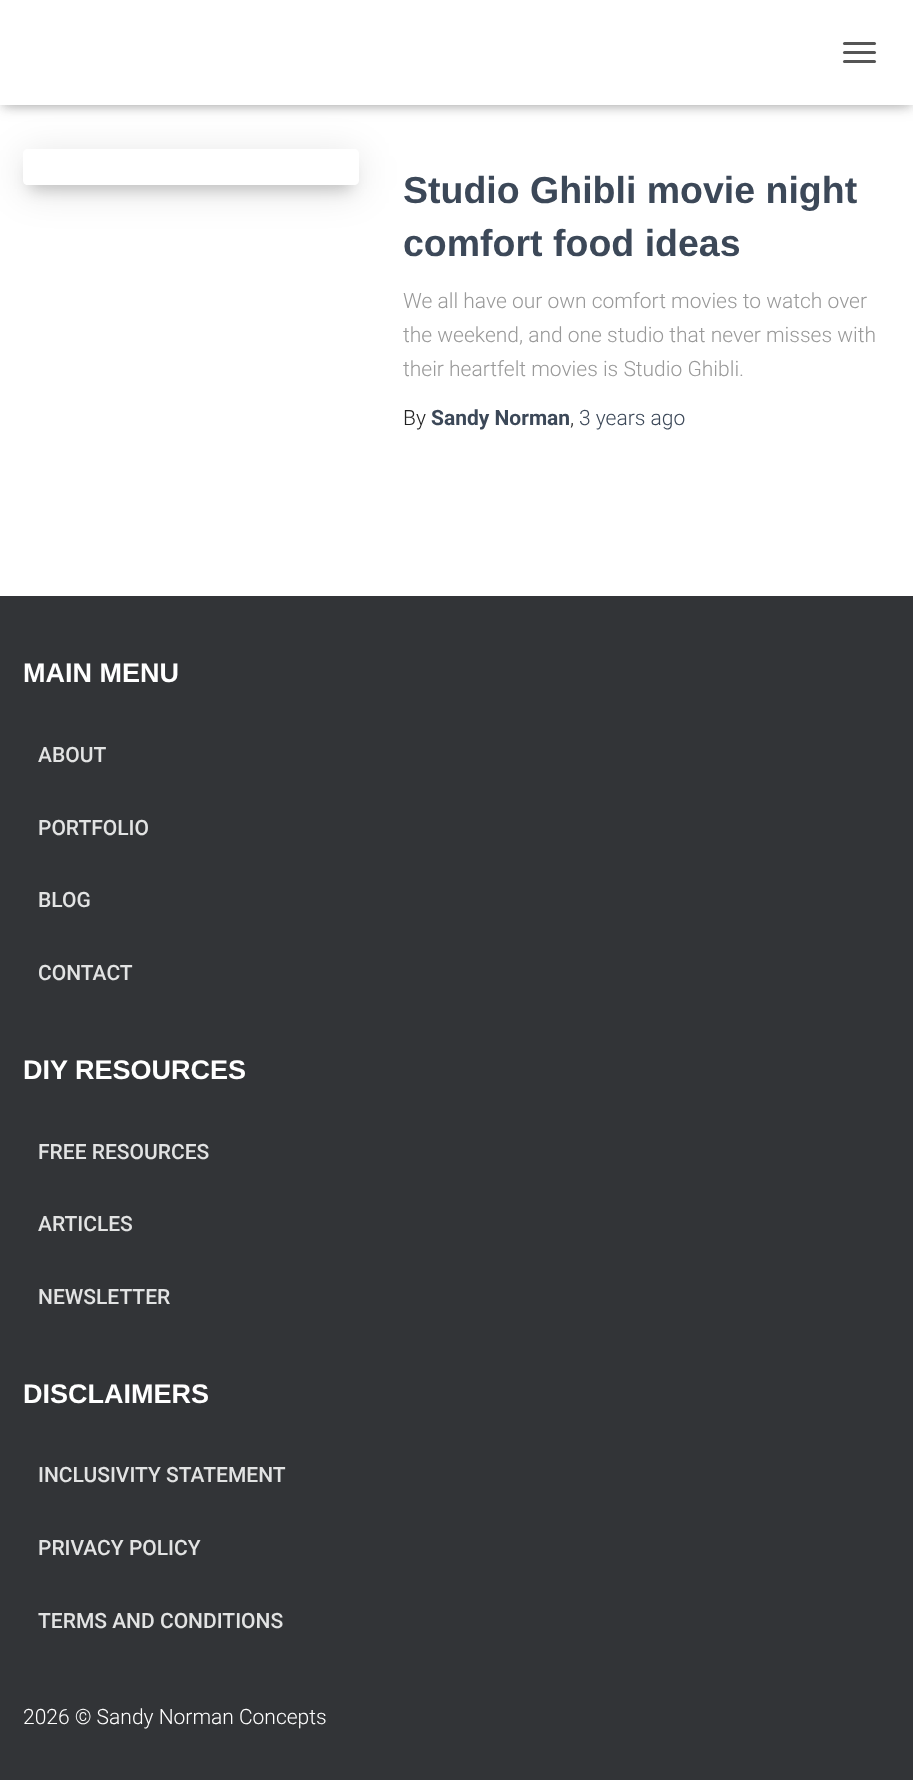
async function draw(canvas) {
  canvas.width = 913;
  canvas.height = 1780;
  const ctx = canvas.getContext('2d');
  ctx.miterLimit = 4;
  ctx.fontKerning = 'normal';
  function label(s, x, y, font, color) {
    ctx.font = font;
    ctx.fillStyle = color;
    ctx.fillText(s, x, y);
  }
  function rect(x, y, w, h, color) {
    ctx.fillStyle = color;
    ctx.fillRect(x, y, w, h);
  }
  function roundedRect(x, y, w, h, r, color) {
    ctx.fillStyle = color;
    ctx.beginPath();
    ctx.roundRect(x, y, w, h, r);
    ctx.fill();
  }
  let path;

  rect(0, 0, 913, 1780, '#fff');
  ctx.fillStyle = '#0000001a';
  ctx.filter = 'blur(4px)';
  ctx.beginPath();
  ctx.rect(3, 9, 908, 99);
  ctx.fill();
  ctx.filter = 'none';
  ctx.fillStyle = '#0000001f';
  ctx.filter = 'blur(7.5px)';
  ctx.beginPath();
  ctx.rect(0, 2, 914, 105);
  ctx.fill();
  ctx.filter = 'none';
  ctx.fillStyle = '#0000006b';
  ctx.filter = 'blur(7.5px)';
  ctx.beginPath();
  ctx.rect(9, 11, 896, 87);
  ctx.fill();
  ctx.filter = 'none';
  ctx.save();
  path = new Path2D('M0 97H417V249H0ZM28 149H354C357 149 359 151 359 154V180C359 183 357 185 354 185H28C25 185 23 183 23 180V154C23 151 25 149 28 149Z');
  ctx.clip(path, 'evenodd');
  ctx.fillStyle = '#0000001f';
  ctx.filter = 'blur(19px)';
  ctx.beginPath();
  ctx.roundRect(23, 155, 336, 36, 5);
  ctx.fill();
  ctx.filter = 'none';
  ctx.restore();
  rect(0, 0, 913, 105, '#fff');
  roundedRect(843, 42, 33, 3, 1.5, '#555');
  roundedRect(843, 51, 33, 3, 1.5, '#555');
  roundedRect(843, 60, 33, 3, 1.5, '#555');
  ctx.save();
  path = new Path2D('M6 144H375V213H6ZM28 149H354C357 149 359 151 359 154V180C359 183 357 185 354 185H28C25 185 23 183 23 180V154C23 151 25 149 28 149Z');
  ctx.clip(path, 'evenodd');
  ctx.fillStyle = '#00000033';
  ctx.filter = 'blur(7.5px)';
  ctx.beginPath();
  ctx.rect(30, 168, 321, 21);
  ctx.fill();
  ctx.filter = 'none';
  ctx.restore();
  label('Studio Ghibli movie night', 403, 203, 'bold 37.5px Liberation Sans', '#3c4858');
  label('comfort food ideas', 403, 256, 'bold 37.5px Liberation Sans', '#3c4858');
  label('We all have our own comfort movies to watch over', 403, 308, '300 21px Roboto', '#999');
  label('the weekend, and one studio that never misses with', 403, 342, '300 21px Roboto', '#999');
  label('their heartfelt movies is Studio Ghibli.', 403, 376, '300 21px Roboto', '#999');
  label('By', 403, 425, '300 21px Roboto', '#212121');
  label('Sandy Norman', 431, 425, 'bold 21px Roboto', '#3c4858');
  label(',', 570, 425, '300 21px Roboto', '#212121');
  label('3 years ago', 579, 425, '300 21px Roboto', '#3c4858');
  rect(0, 596, 913, 1184, '#323437');
  label('MAIN MENU', 23, 682, 'bold 27px Liberation Sans', '#fff');
  label('ABOUT', 38, 762, '500 21px Roboto', '#e2e3e3');
  label('PORTFOLIO', 38, 835, '500 21px Roboto', '#e2e3e3');
  label('BLOG', 38, 907, '500 21px Roboto', '#e2e3e3');
  label('CONTACT', 38, 980, '500 21px Roboto', '#e2e3e3');
  label('DIY RESOURCES', 23, 1079, 'bold 27px Liberation Sans', '#fff');
  label('FREE RESOURCES', 38, 1159, '500 21px Roboto', '#e2e3e3');
  label('ARTICLES', 38, 1231, '500 21px Roboto', '#e2e3e3');
  label('NEWSLETTER', 38, 1304, '500 21px Roboto', '#e2e3e3');
  label('DISCLAIMERS', 23, 1403, 'bold 27px Liberation Sans', '#fff');
  label('INCLUSIVITY STATEMENT', 38, 1482, '500 21px Roboto', '#e2e3e3');
  label('PRIVACY POLICY', 38, 1555, '500 21px Roboto', '#e2e3e3');
  label('TERMS AND CONDITIONS', 38, 1628, '500 21px Roboto', '#e2e3e3');
  label('2026 © Sandy Norman Concepts', 23, 1724, '300 21px Roboto', '#fff');
}

draw(document.querySelector('canvas'));
